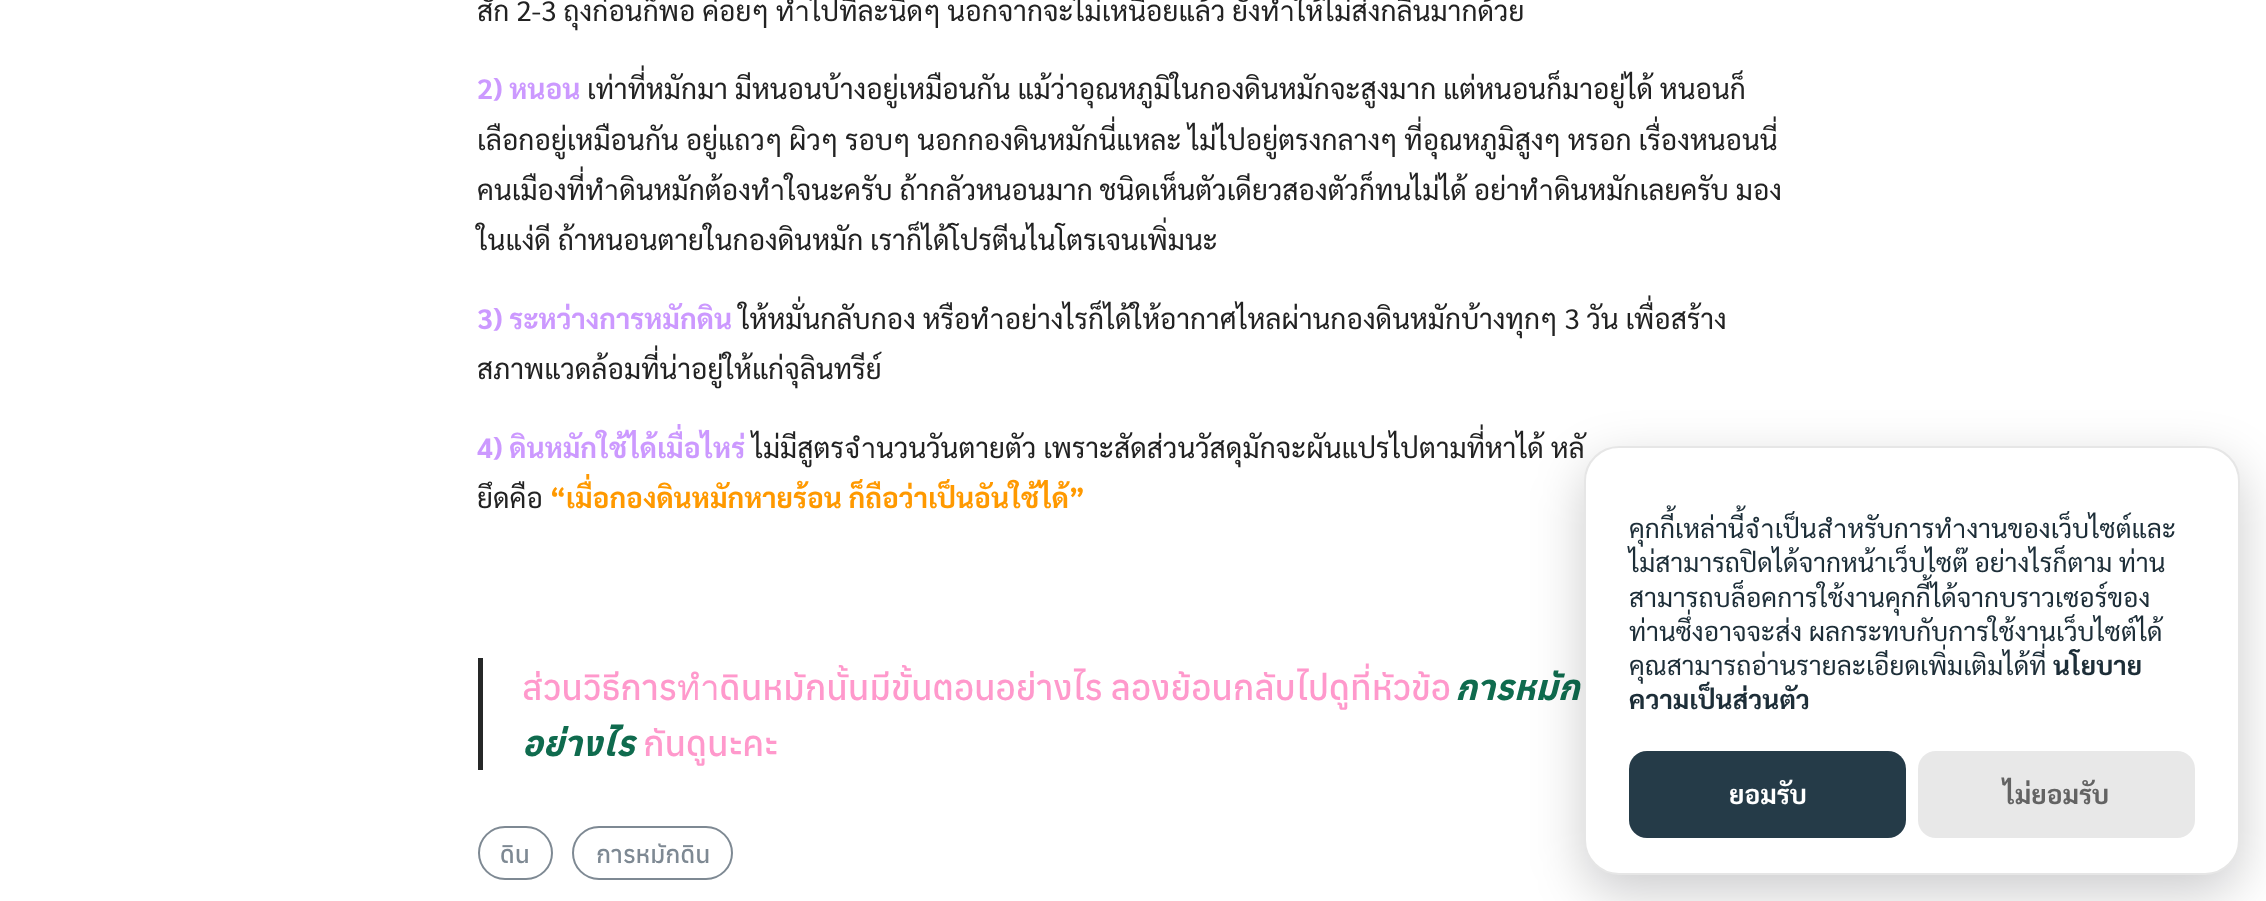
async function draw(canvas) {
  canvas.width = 2266;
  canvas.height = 901;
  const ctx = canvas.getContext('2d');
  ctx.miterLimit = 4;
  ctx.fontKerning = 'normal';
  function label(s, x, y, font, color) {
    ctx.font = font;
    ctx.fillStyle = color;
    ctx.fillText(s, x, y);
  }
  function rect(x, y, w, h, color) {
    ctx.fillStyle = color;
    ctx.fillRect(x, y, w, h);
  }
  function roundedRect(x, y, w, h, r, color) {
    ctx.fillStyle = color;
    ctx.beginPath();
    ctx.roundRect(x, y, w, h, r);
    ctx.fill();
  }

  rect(0, 0, 2266, 901, '#fff');
  label('สัก 2-3 ถุงก่อนก็พอ ค่อยๆ ทำไปทีละนิดๆ นอกจากจะไม่เหนื่อยแล้ว ยังทำให้ไม่ส่งกลิ่นมากด้วย', 477, 21, '28px Sarabun', '#222');
  label('2) หนอน', 477, 99, 'bold 28px Sarabun', '#c9f');
  label('เท่าที่หมักมา มีหนอนบ้างอยู่เหมือนกัน แม้ว่าอุณหภูมิในกองดินหมักจะสูงมาก แต่หนอนก็มาอยู่ได้ หนอนก็', 587, 99, '28px Sarabun', '#222');
  label('เลือกอยู่เหมือนกัน อยู่แถวๆ ผิวๆ รอบๆ นอกกองดินหมักนี่แหละ ไม่ไปอยู่ตรงกลางๆ ที่อุณหภูมิสูงๆ หรอก เรื่องหนอนนี่', 477, 150, '28px Sarabun', '#222');
  label('คนเมืองที่ทำดินหมักต้องทำใจนะครับ ถ้ากลัวหนอนมาก ชนิดเห็นตัวเดียวสองตัวก็ทนไม่ได้ อย่าทำดินหมักเลยครับ มอง', 477, 200, '28px Sarabun', '#222');
  label('ในแง่ดี ถ้าหนอนตายในกองดินหมัก เราก็ได้โปรตีนไนโตรเจนเพิ่มนะ', 477, 250, '28px Sarabun', '#222');
  label('3) ระหว่างการหมักดิน', 477, 329, 'bold 28px Sarabun', '#c9f');
  label('ให้หมั่นกลับกอง หรือทำอย่างไรก็ได้ให้อากาศไหลผ่านกองดินหมักบ้างทุกๆ 3 วัน เพื่อสร้าง', 739, 329, '28px Sarabun', '#222');
  label('สภาพแวดล้อมที่น่าอยู่ให้แก่จุลินทรีย์', 477, 379, '28px Sarabun', '#222');
  label('4) ดินหมักใช้ได้เมื่อไหร่', 477, 458, 'bold 28px Sarabun', '#c9f');
  label('ไม่มีสูตรจำนวนวันตายตัว เพราะสัดส่วนวัสดุมักจะผันแปรไปตามที่หาได้ หลั', 752, 458, '28px Sarabun', '#222');
  label('ยึดคือ', 477, 508, '28px Sarabun', '#222');
  label('“เมื่อกองดินหมักหายร้อน ก็ถือว่าเป็นอันใช้ได้”', 550, 508, 'bold 28px Sarabun', '#f90');
  rect(478, 658, 5, 112, '#262828');
  label('ส่วนวิธีการทำดินหมักนั้นมีขั้นตอนอย่างไร ลองย้อนกลับไปดูที่หัวข้อ', 522, 700, '500 35px Anuphan', '#f9c');
  label('การหมัก', 1455, 700, 'italic bold 35px Anuphan', '#0f6b4e');
  label('อย่างไร', 522, 756, 'italic bold 35px Anuphan', '#0f6b4e');
  label('กันดูนะคะ', 643, 756, '500 35px Anuphan', '#f9c');
  ctx.beginPath();
  ctx.roundRect(479, 827, 73, 52, 26);
  ctx.strokeStyle = '#7e8993';
  ctx.lineWidth = 2;
  ctx.stroke();
  label('ดิน', 500, 863, '500 24.5px Anuphan', '#7e8993');
  ctx.beginPath();
  ctx.roundRect(573, 827, 159, 52, 26);
  ctx.stroke();
  label('การหมักดิน', 596, 863, '500 24.5px Anuphan', '#7e8993');
  ctx.fillStyle = '#02020333';
  ctx.filter = 'blur(26px)';
  ctx.beginPath();
  ctx.roundRect(1584, 464, 656, 429, 35);
  ctx.fill();
  ctx.filter = 'none';
  ctx.fillStyle = '#fff';
  ctx.beginPath();
  ctx.roundRect(1585, 447, 654, 427, 34);
  ctx.fill();
  ctx.strokeStyle = '#e6e6e6';
  ctx.stroke();
  label('คุกกี้เหล่านี้จำเป็นสำหรับการทำงานของเว็บไซต์และ', 1629, 538, '26.25px Sarabun', '#1d2e38');
  label('ไม่สามารถปิดได้จากหน้าเว็บไซต๊ อย่างไรก็ตาม ท่าน', 1629, 572, '26.25px Sarabun', '#1d2e38');
  label('สามารถบล็อคการใช้งานคุกกี้ได้จากบราวเซอร์ของ', 1629, 607, '26.25px Sarabun', '#1d2e38');
  label('ท่านซึ่งอาจจะส่ง ผลกระทบกับการใช้งานเว็บไซต์ได้', 1629, 641, '26.25px Sarabun', '#1d2e38');
  label('คุณสามารถอ่านรายละเอียดเพิ่มเติมได้ที่', 1629, 675, '26.25px Sarabun', '#1d2e38');
  label('นโยบาย', 2053, 675, 'bold 26.25px Sarabun', '#1d2e38');
  label('ความเป็นส่วนตัว', 1629, 709, 'bold 26.25px Sarabun', '#1d2e38');
  roundedRect(1629, 751, 277, 87, 18, '#253b48');
  label('ยอมรับ', 1729, 804, 'bold 26.25px Sarabun', '#fff');
  roundedRect(1918, 751, 277, 87, 18, '#e8e8e8');
  label('ไม่ยอมรับ', 2003, 804, 'bold 26.25px Sarabun', '#636363');
}

draw(document.querySelector('canvas'));
